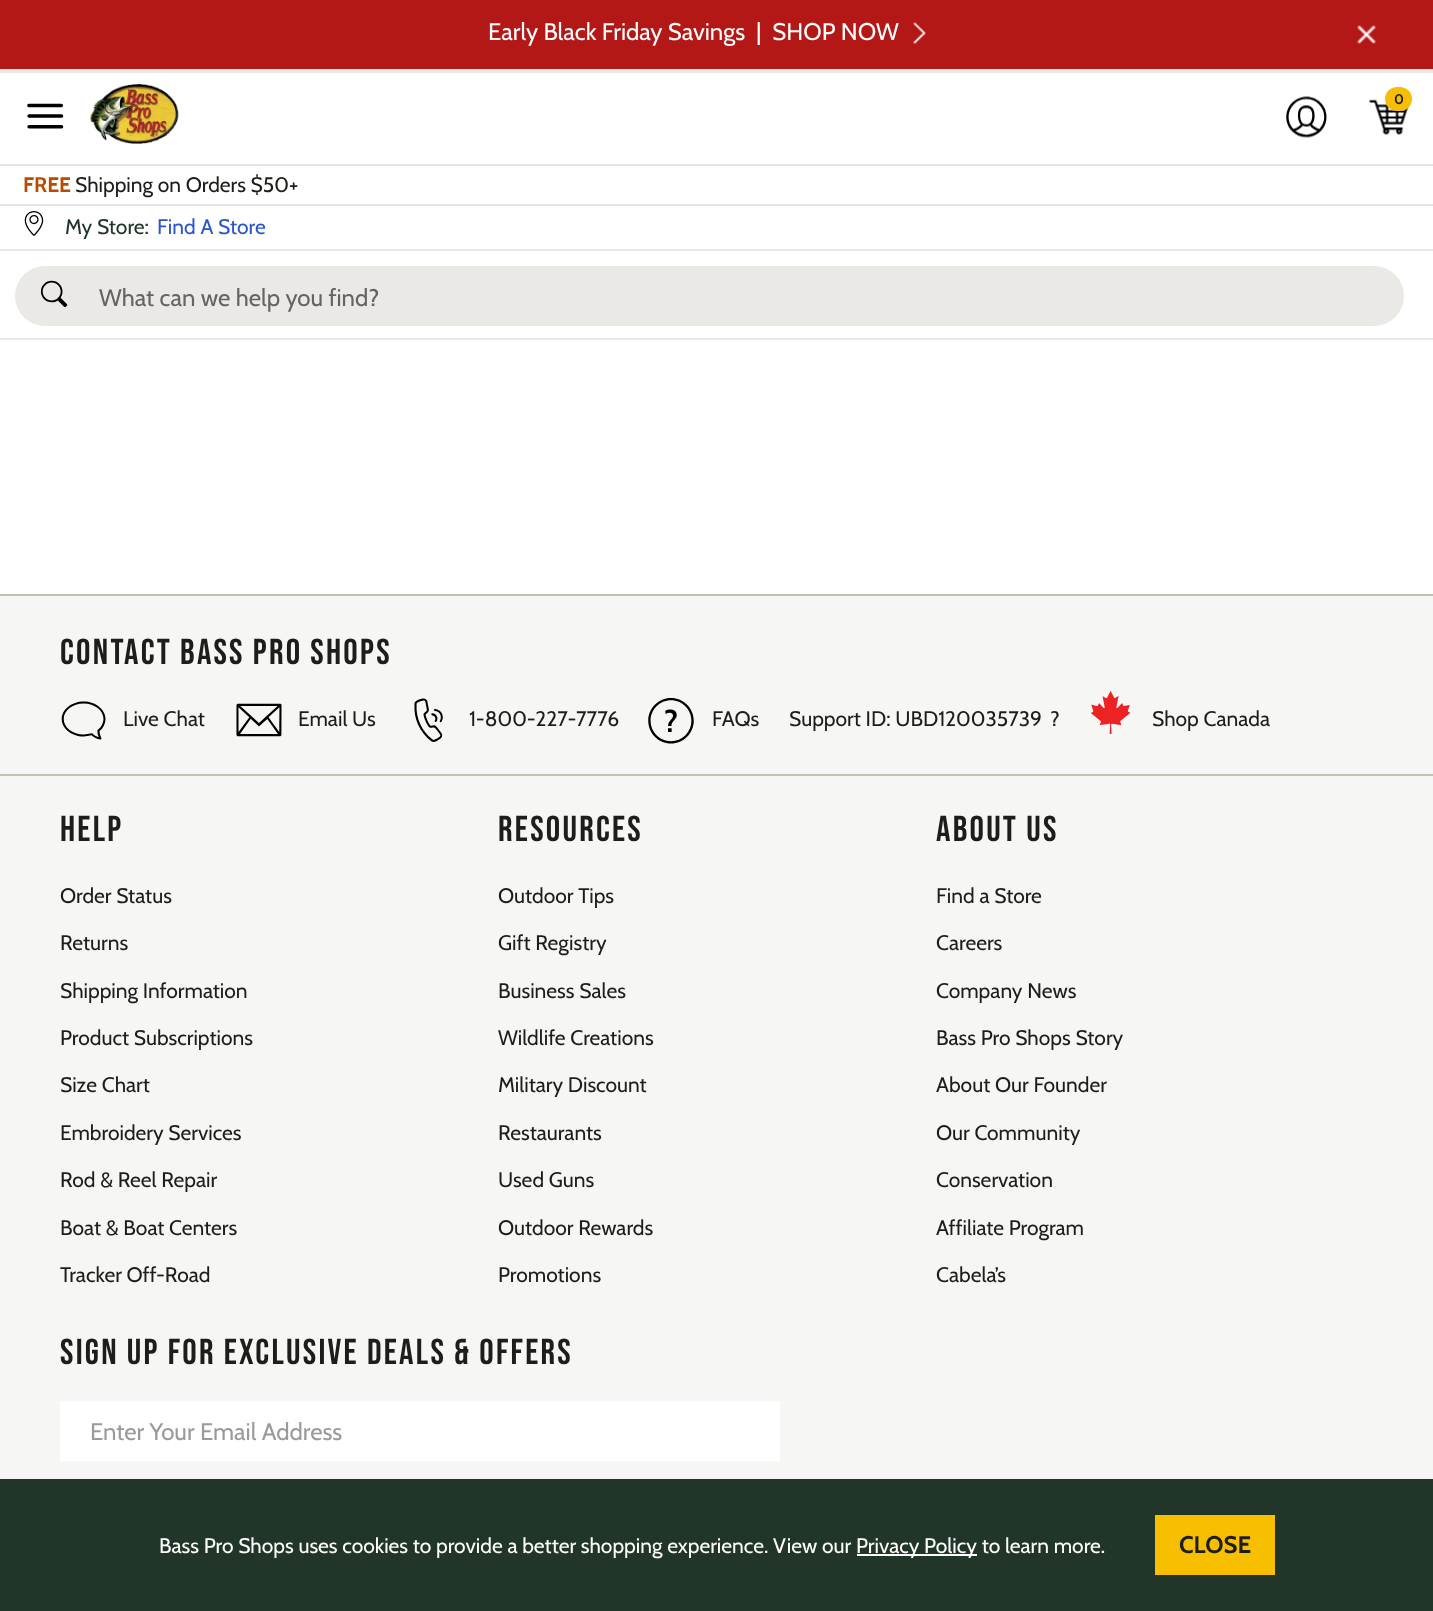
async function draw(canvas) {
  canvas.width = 1433;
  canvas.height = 1611;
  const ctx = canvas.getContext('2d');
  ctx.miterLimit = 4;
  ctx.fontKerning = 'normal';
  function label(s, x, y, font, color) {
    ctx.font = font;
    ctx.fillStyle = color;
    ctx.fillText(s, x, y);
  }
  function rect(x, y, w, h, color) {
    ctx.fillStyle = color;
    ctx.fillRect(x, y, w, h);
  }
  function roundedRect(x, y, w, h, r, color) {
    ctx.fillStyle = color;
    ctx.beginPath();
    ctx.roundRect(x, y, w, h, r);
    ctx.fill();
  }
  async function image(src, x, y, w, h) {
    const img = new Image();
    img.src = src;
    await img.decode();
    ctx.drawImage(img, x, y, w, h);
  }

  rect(0, 0, 1433, 1611, '#fff');
  rect(0, 0, 1433, 69, '#b31716');
  rect(0, 69, 1433, 2, '#e5e5e5');
  label('Early Black Friday Savings', 488, 40, '24px Cabin', '#fff');
  label('|  SHOP NOW', 756, 40, '24px Cabin', '#fff');
  await image('assets/img1.png', 913, 22, 13, 22);
  await image('assets/img2.png', 1357, 25, 19, 19);
  rect(0, 71, 1433, 2, '#eae9e5');
  await image('assets/img3.png', 27, 103, 37, 26);
  await image('assets/img4.png', 90, 84, 89, 60);
  await image('assets/img5.png', 1286, 96, 41, 42);
  await image('assets/img6.png', 1369, 99, 40, 36);
  roundedRect(1385, 87, 27, 24, 12, '#f7be07');
  label('0', 1394, 104, 'bold 14px Cabin', '#1e1d19');
  rect(0, 249, 1433, 2, '#eae9e5');
  rect(0, 338, 1433, 2, '#eae9e5');
  roundedRect(15, 266, 1389, 60, 30, '#eae9e5');
  await image('assets/img7.png', 40, 280, 28, 28);
  label('What can we help you find?', 99, 306, '24px Cabin', '#656464');
  rect(0, 164, 1433, 2, '#e5e5e5');
  label('FREE', 23, 192, 'bold 21px Cabin', '#b84d00');
  label('Shipping on Orders $50+', 75, 192, '21px Cabin', '#1e1d19');
  rect(0, 204, 1433, 2, '#e5e5e5');
  await image('assets/img8.png', 24, 211, 20, 25);
  label('My Store:', 65, 234, '21px Cabin', '#213629');
  label('Find A Store', 157, 234, '21px Cabin', '#2a55cb');
  rect(0, 1479, 1433, 132, '#213629');
  label('Bass Pro Shops uses cookies to provide a better shopping experience. View our', 159, 1553, '21px Cabin', '#fff');
  rect(857, 1554, 120, 2, '#fff');
  label('Privacy Policy to learn more.', 856, 1553, '21px Cabin', '#fff');
  rect(1155, 1515, 120, 60, '#f8bf00');
  label('CLOSE', 1179, 1553, 'bold 24px Cabin', '#1e1d19');
  rect(0, 596, 1433, 883, '#f6f6f4');
  rect(0, 594, 1433, 2, '#c3c0b4');
  rect(0, 774, 1433, 2, '#c3c0b4');
  ctx.letterSpacing = '2.25px';
  label('CONTACT BASS PRO SHOPS', 60, 664, '36px Bebas Neue', '#1e1d19');
  await image('assets/img9.png', 61, 701, 45, 39);
  ctx.letterSpacing = '0px';
  label('Live Chat', 123, 726, '21px Cabin', '#1e1d19');
  await image('assets/img10.png', 236, 703, 46, 34);
  label('Email Us', 298, 726, '21px Cabin', '#1e1d19');
  await image('assets/img11.png', 414, 698, 29, 44);
  label('1-800-227-7776', 469, 726, '21px Cabin', '#1e1d19');
  await image('assets/img12.png', 648, 698, 46, 46);
  label('FAQs', 712, 726, '21px Cabin', '#1e1d19');
  label('Support ID: UBD120035739', 789, 726, '21px Cabin', '#1e1d19');
  label('?', 1050, 726, '21px Cabin', '#1e1d19');
  await image('assets/img13.png', 1091, 690, 40, 44);
  label('Shop Canada', 1152, 726, '21px Cabin', '#1e1d19');
  ctx.letterSpacing = '2.25px';
  label('HELP', 60, 841, '36px Bebas Neue', '#1e1d19');
  ctx.letterSpacing = '0px';
  label('Order Status', 60, 903, '21px Cabin', '#1e1d19');
  label('Returns', 60, 950, '21px Cabin', '#1e1d19');
  label('Shipping Information', 60, 998, '21px Cabin', '#1e1d19');
  label('Product Subscriptions', 60, 1045, '21px Cabin', '#1e1d19');
  label('Size Chart', 60, 1092, '21px Cabin', '#1e1d19');
  label('Embroidery Services', 60, 1140, '21px Cabin', '#1e1d19');
  label('Rod & Reel Repair', 60, 1187, '21px Cabin', '#1e1d19');
  label('Boat & Boat Centers', 60, 1235, '21px Cabin', '#1e1d19');
  label('Tracker Off-Road', 60, 1282, '21px Cabin', '#1e1d19');
  ctx.letterSpacing = '2.25px';
  label('RESOURCES', 498, 841, '36px Bebas Neue', '#1e1d19');
  ctx.letterSpacing = '0px';
  label('Outdoor Tips', 498, 903, '21px Cabin', '#1e1d19');
  label('Gift Registry', 498, 950, '21px Cabin', '#1e1d19');
  label('Business Sales', 498, 998, '21px Cabin', '#1e1d19');
  label('Wildlife Creations', 498, 1045, '21px Cabin', '#1e1d19');
  label('Military Discount', 498, 1092, '21px Cabin', '#1e1d19');
  label('Restaurants', 498, 1140, '21px Cabin', '#1e1d19');
  label('Used Guns', 498, 1187, '21px Cabin', '#1e1d19');
  label('Outdoor Rewards', 498, 1235, '21px Cabin', '#1e1d19');
  label('Promotions', 498, 1282, '21px Cabin', '#1e1d19');
  ctx.letterSpacing = '2.25px';
  label('ABOUT US', 936, 841, '36px Bebas Neue', '#1e1d19');
  ctx.letterSpacing = '0px';
  label('Find a Store', 936, 903, '21px Cabin', '#1e1d19');
  label('Careers', 936, 950, '21px Cabin', '#1e1d19');
  label('Company News', 936, 998, '21px Cabin', '#1e1d19');
  label('Bass Pro Shops Story', 936, 1045, '21px Cabin', '#1e1d19');
  label('About Our Founder', 936, 1092, '21px Cabin', '#1e1d19');
  label('Our Community', 936, 1140, '21px Cabin', '#1e1d19');
  label('Conservation', 936, 1187, '21px Cabin', '#1e1d19');
  label('Affiliate Program', 936, 1235, '21px Cabin', '#1e1d19');
  label('Cabela’s', 936, 1282, '21px Cabin', '#1e1d19');
  ctx.letterSpacing = '2.25px';
  label('SIGN UP FOR EXCLUSIVE DEALS & OFFERS', 60, 1364, '36px Bebas Neue', '#1e1d19');
  rect(60, 1401, 720, 60, '#fff');
  ctx.letterSpacing = '0px';
  label('Enter Your Email Address', 90, 1440, '24px Cabin', '#9a9a9a');
}

draw(document.querySelector('canvas'));
